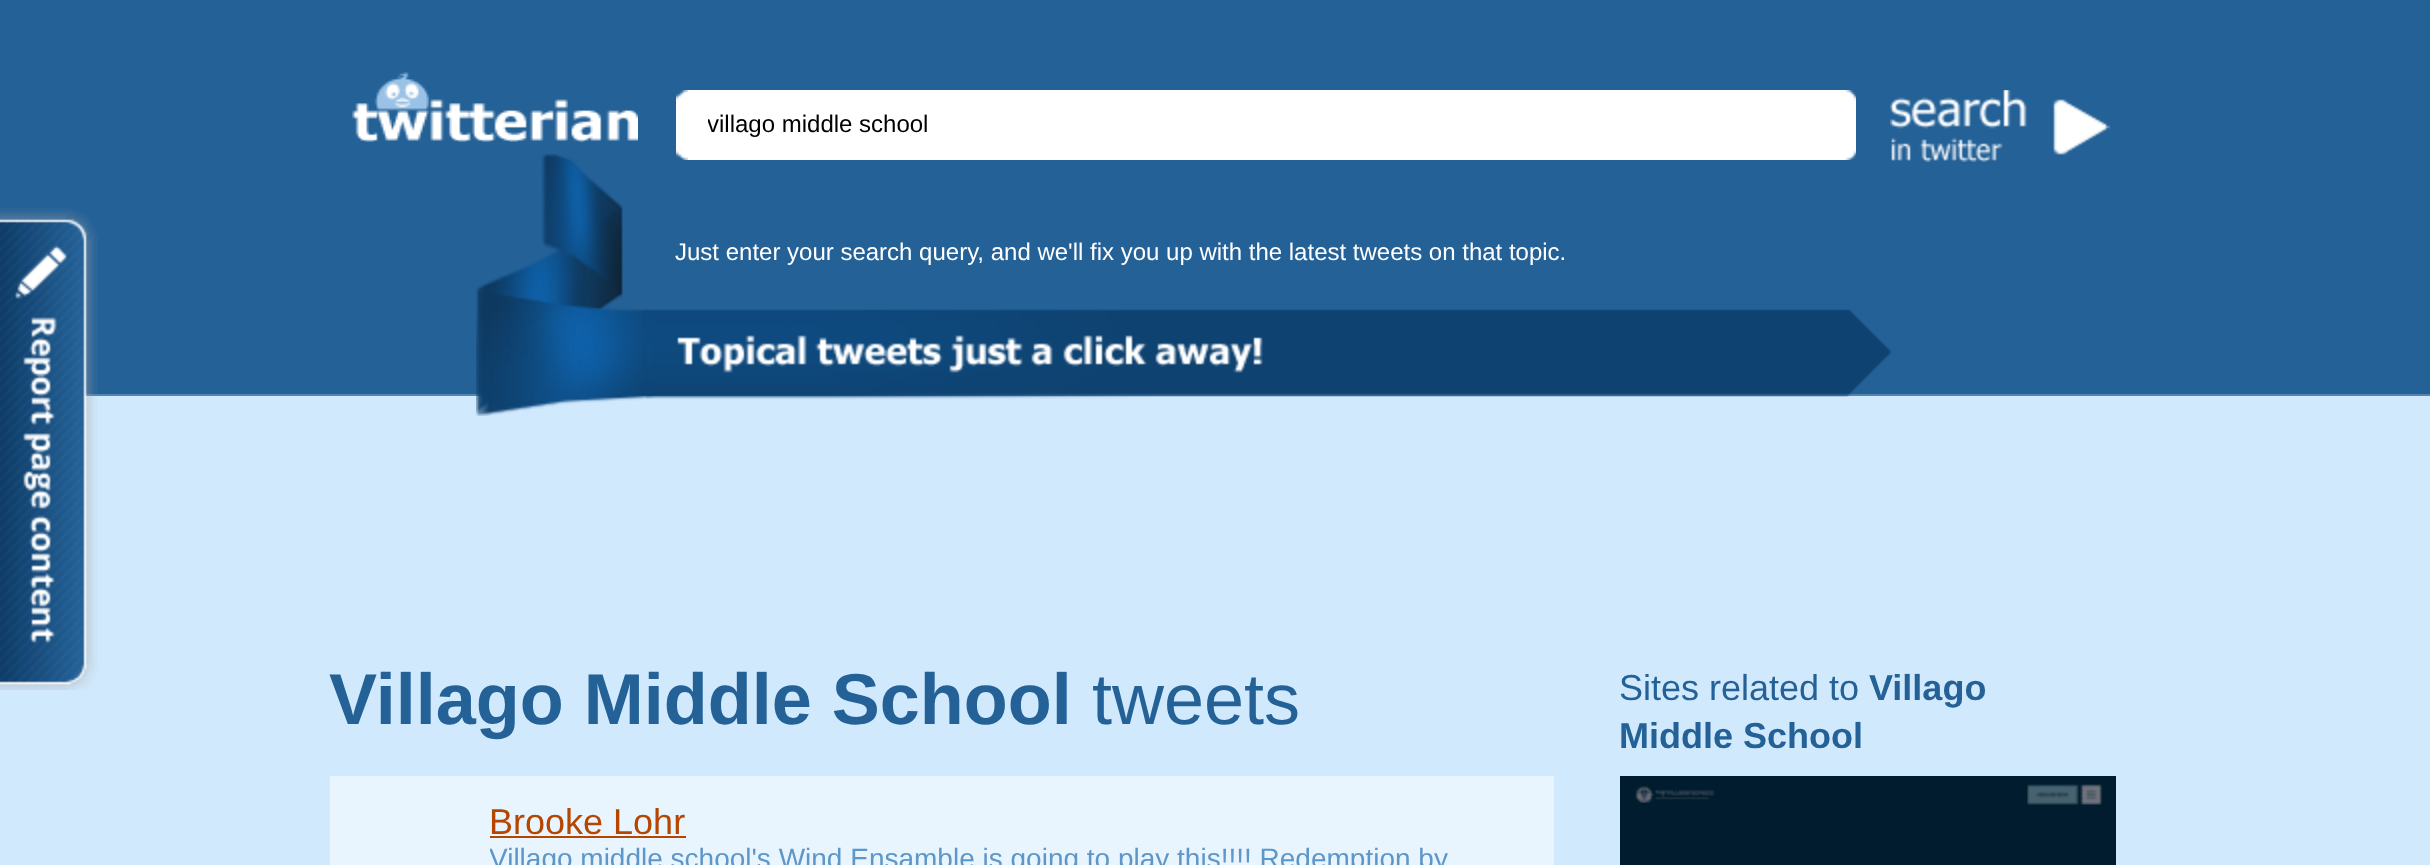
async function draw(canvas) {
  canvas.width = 2430;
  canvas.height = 865;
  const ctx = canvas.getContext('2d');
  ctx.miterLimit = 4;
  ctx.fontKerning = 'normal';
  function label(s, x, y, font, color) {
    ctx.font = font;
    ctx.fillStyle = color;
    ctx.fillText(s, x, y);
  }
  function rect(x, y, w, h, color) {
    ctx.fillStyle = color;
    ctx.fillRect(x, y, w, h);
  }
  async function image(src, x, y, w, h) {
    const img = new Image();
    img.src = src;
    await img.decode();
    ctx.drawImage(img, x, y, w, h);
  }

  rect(0, 0, 2430, 865, '#d1e9fd');
  rect(0, 0, 2430, 394, '#246197');
  rect(85, 394, 2345, 2, '#5285b2');
  await image('assets/img1.png', 0, 208, 98, 482);
  await image('assets/img2.png', 352, 72, 286, 70);
  label('Just enter your search query, and we\'ll fix you up with the latest tweets on that topic.', 675, 260, '24px Liberation Sans', '#fff');
  await image('assets/img6.png', 476, 154, 1416, 262);
  await image('assets/img3.png', 676, 90, 12, 70);
  rect(688, 90, 1157, 70, '#fff');
  await image('assets/img4.png', 1845, 90, 11, 70);
  ctx.save();
  ctx.beginPath();
  ctx.rect(708, 90, 1116, 70);
  ctx.clip();
  label('villago middle school', 707, 132, '24px Liberation Sans', '#000');
  ctx.restore();
  await image('assets/img5.png', 1890, 90, 220, 72);
  label('Villago Middle School', 329, 724, 'bold 72px Liberation Sans', '#246197');
  label('tweets', 1092, 724, '72px Liberation Sans', '#246197');
  rect(330, 776, 1224, 89, '#e8f4fe');
  label('Brooke Lohr', 489, 834, '36px Liberation Sans', '#b64500');
  rect(490, 836, 196, 2, '#b64500');
  ctx.save();
  ctx.beginPath();
  ctx.rect(490, 804, 1036, 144);
  ctx.clip();
  label('Villago middle school\'s Wind Ensamble is going to play this!!!! Redemption by', 489, 868, '28px Liberation Sans', '#5d96c8');
  ctx.restore();
  label('Sites related to', 1619, 700, '36px Liberation Sans', '#246197');
  label('Villago', 1869, 700, 'bold 36px Liberation Sans', '#246197');
  label('Middle School', 1619, 748, 'bold 36px Liberation Sans', '#246197');
  await image('assets/img7.png', 1620, 776, 496, 89);
}

draw(document.querySelector('canvas'));
